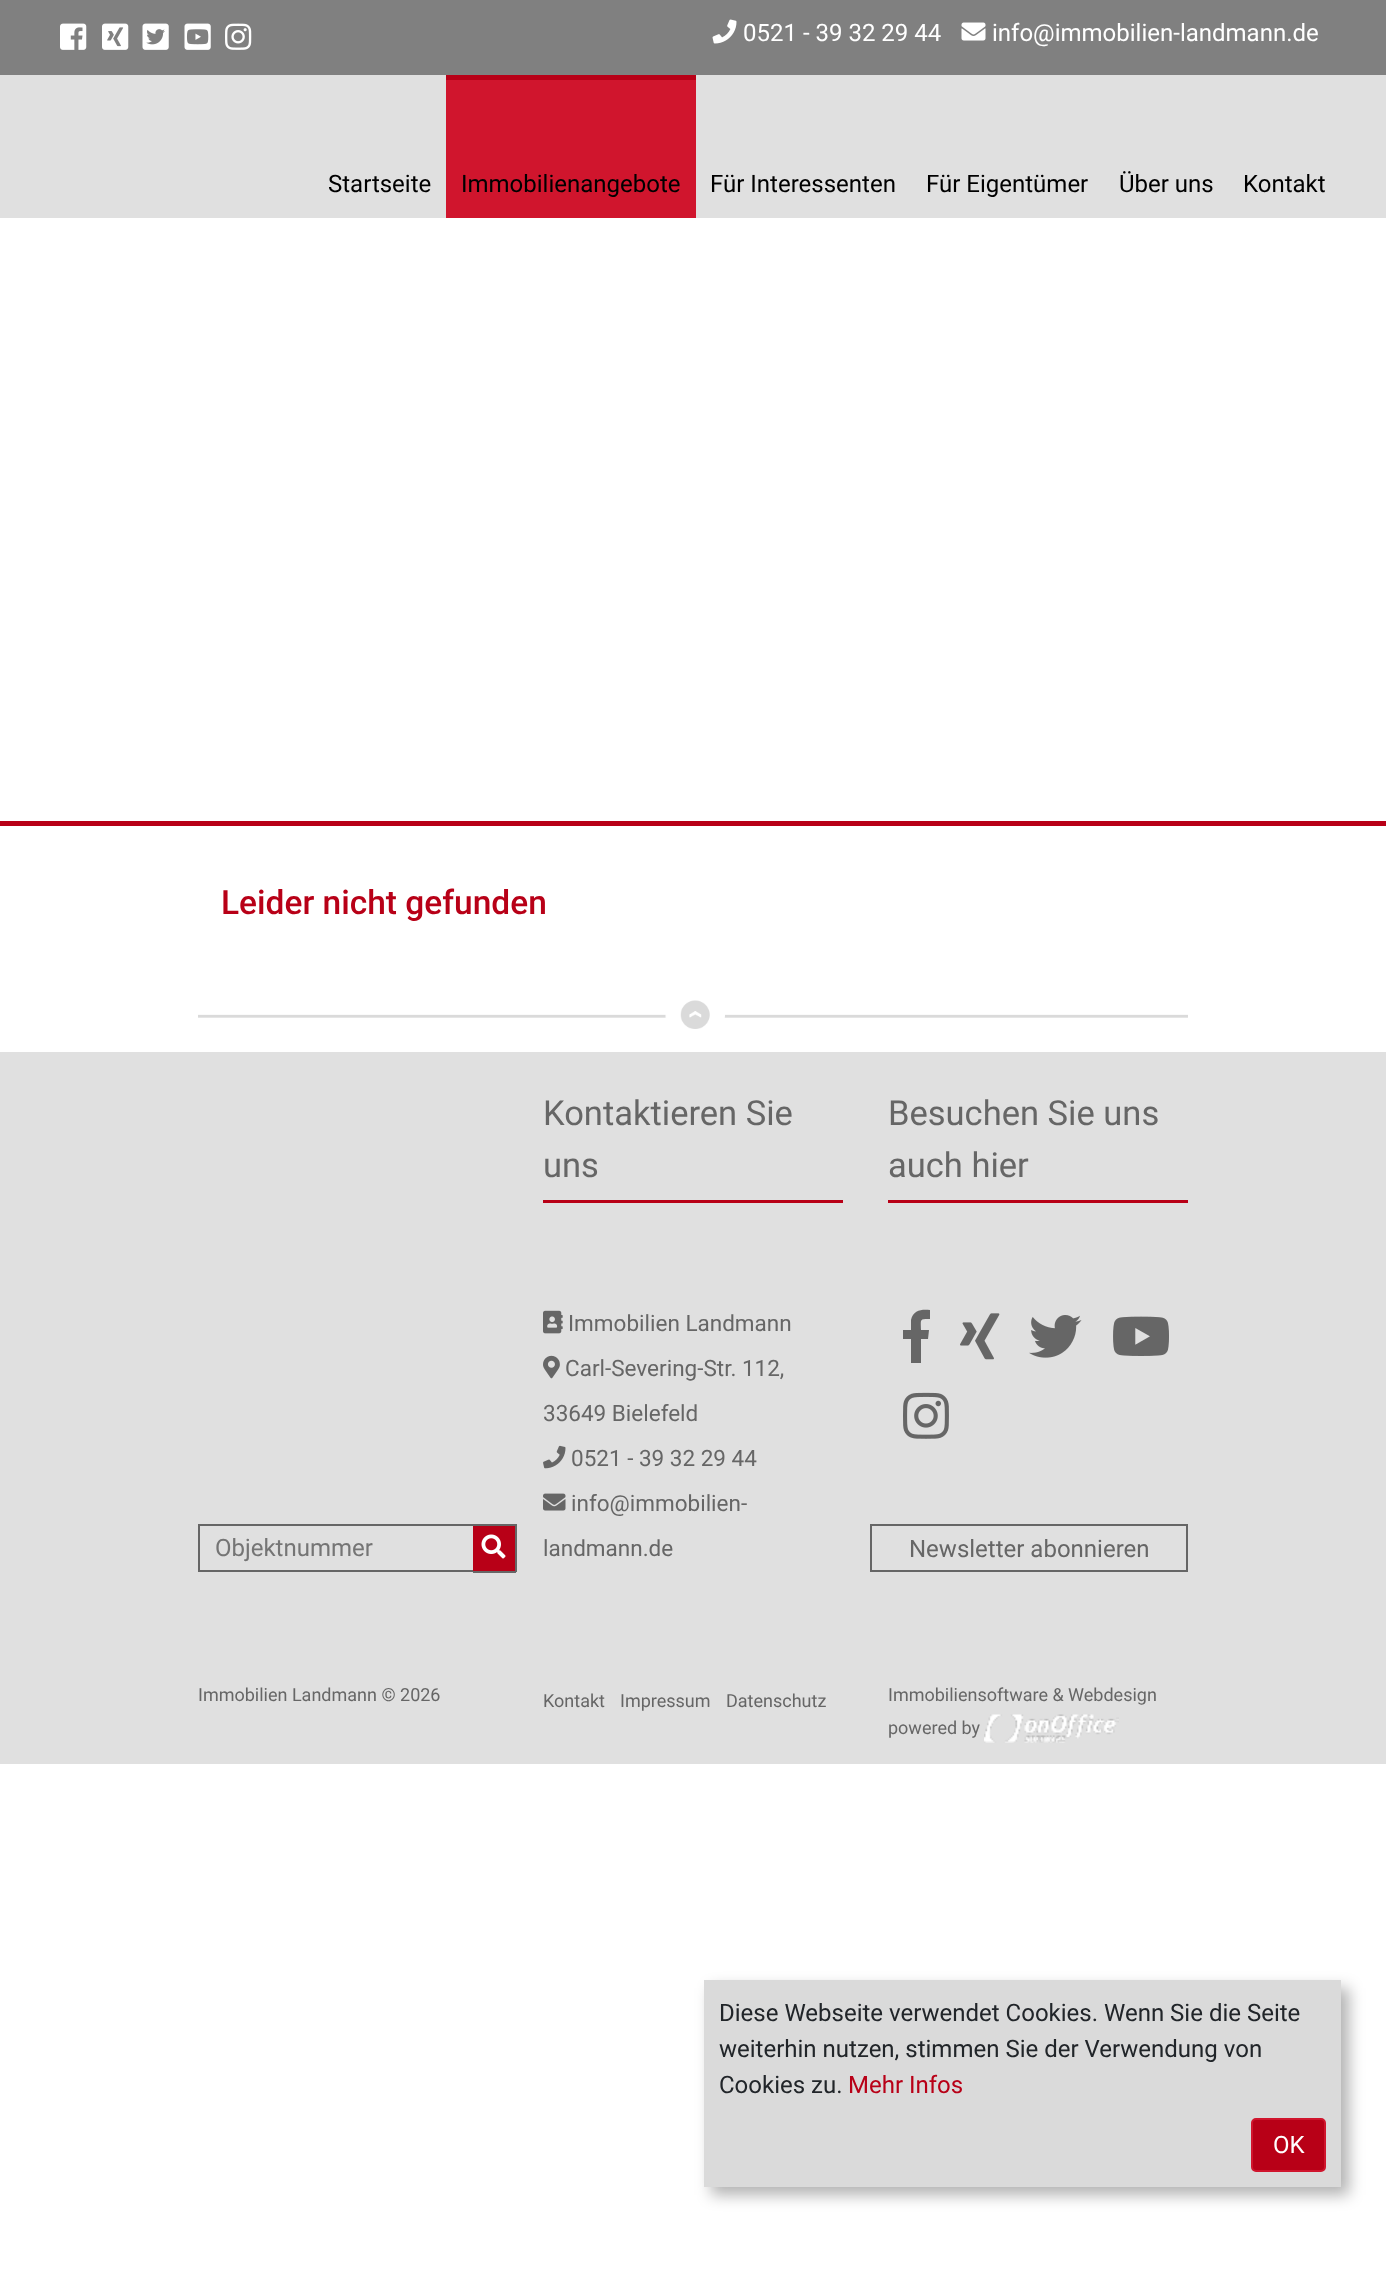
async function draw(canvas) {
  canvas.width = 1386;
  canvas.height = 2276;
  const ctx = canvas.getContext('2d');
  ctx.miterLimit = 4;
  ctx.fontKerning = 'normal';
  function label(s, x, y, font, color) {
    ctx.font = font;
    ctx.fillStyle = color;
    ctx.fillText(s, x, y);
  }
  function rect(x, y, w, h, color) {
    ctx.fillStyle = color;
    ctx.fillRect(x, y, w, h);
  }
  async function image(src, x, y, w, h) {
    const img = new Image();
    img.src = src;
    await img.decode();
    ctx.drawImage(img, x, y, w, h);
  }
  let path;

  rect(0, 0, 1386, 2276, '#fff');
  rect(0, 0, 1386, 75, '#808080');
  await image('assets/img1.png', 60, 23, 27, 27);
  await image('assets/img2.png', 102, 23, 27, 27);
  await image('assets/img3.png', 142, 23, 27, 27);
  await image('assets/img4.png', 184, 23, 27, 27);
  await image('assets/img5.png', 225, 23, 27, 27);
  await image('assets/img6.png', 712, 19, 25, 25);
  label('0521 - 39 32 29 44', 743, 41, '24px Roboto', '#fff');
  await image('assets/img7.png', 961, 22, 25, 19);
  label('info@immobilien-landmann.de', 992, 41, '24px Roboto', '#fff');
  rect(0, 75, 1386, 143, '#e0e0e0');
  label('Startseite', 328, 192, '24px Roboto', '#000');
  rect(446, 80, 250, 138, '#d0152d');
  rect(446, 75, 250, 5, '#b80017');
  label('Immobilienangebote', 461, 192, '24px Roboto', '#000');
  label('Für Interessenten', 710, 192, '24px Roboto', '#000');
  label('Für Eigentümer', 926, 192, '24px Roboto', '#000');
  label('Über uns', 1119, 192, '24px Roboto', '#000');
  label('Kontakt', 1243, 192, '24px Roboto', '#000');
  rect(0, 821, 1386, 5, '#b80017');
  label('Leider nicht gefunden', 221, 914, '500 33.5px Roboto', '#b80017');
  rect(0, 1052, 1386, 712, '#e0e0e0');
  await image('assets/img8.png', 198, 1000, 990, 29);
  ctx.strokeStyle = '#666';
  ctx.lineWidth = 2;
  ctx.strokeRect(199, 1525, 316, 46);
  label('Objektnummer', 215, 1556, '24px Roboto', '#757575');
  rect(473, 1526, 42, 45, '#b80017');
  rect(516, 1524, 1, 48, '#666');
  rect(473, 1572, 43, 1, '#666');
  await image('assets/img9.png', 481, 1534, 25, 25);
  rect(543, 1200, 300, 3, '#b80017');
  label('Kontaktieren Sie', 543, 1125, '34.5px Roboto', '#666');
  label('uns', 543, 1177, '34.5px Roboto', '#666');
  await image('assets/img10.png', 543, 1310, 20, 24);
  label('Immobilien Landmann', 568, 1331, '22.5px Roboto', '#666');
  await image('assets/img11.png', 543, 1355, 17, 24);
  label('Carl-Severing-Str. 112,', 565, 1376, '22.5px Roboto', '#666');
  label('33649 Bielefeld', 543, 1421, '22.5px Roboto', '#666');
  await image('assets/img12.png', 543, 1445, 23, 24);
  label('0521 - 39 32 29 44', 571, 1466, '22.5px Roboto', '#666');
  await image('assets/img13.png', 543, 1493, 23, 18);
  label('info@immobilien-', 571, 1511, '22.5px Roboto', '#666');
  label('landmann.de', 543, 1556, '22.5px Roboto', '#666');
  rect(888, 1200, 300, 3, '#b80017');
  label('Besuchen Sie uns', 888, 1125, '34.5px Roboto', '#666');
  label('auch hier', 888, 1177, '34.5px Roboto', '#666');
  path = new Path2D('M911 1363V1339H903V1330H911V1320C913 1310 922 1309 930 1310V1319C919 1319 921 1319 921 1330H929L928 1339H921V1363Z');
  ctx.fill(path);
  await image('assets/img14.png', 960, 1313, 40, 47);
  await image('assets/img15.png', 1029, 1315, 53, 43);
  await image('assets/img16.png', 1113, 1316, 56, 40);
  await image('assets/img17.png', 903, 1392, 46, 47);
  ctx.strokeRect(871, 1525, 316, 46);
  label('Newsletter abonnieren', 909, 1557, '24px Roboto', '#666');
  label('Immobilien Landmann © 2026', 198, 1701, '18px Roboto', '#666');
  label('Kontakt', 543, 1707, '18px Roboto', '#666');
  label('Impressum', 620, 1707, '18px Roboto', '#666');
  label('Datenschutz', 726, 1707, '18px Roboto', '#666');
  label('Immobiliensoftware & Webdesign', 888, 1701, '18px Roboto', '#666');
  label('powered by', 888, 1734, '18px Roboto', '#666');
  await image('assets/img18.png', 984, 1714, 135, 29);
  ctx.fillStyle = '#0000004d';
  ctx.filter = 'blur(7.5px)';
  ctx.beginPath();
  ctx.rect(711, 1988, 638, 207);
  ctx.fill();
  ctx.filter = 'none';
  rect(704, 1980, 637, 207, '#dadada');
  label('Diese Webseite verwendet Cookies. Wenn Sie die Seite', 719, 2021, '24px Roboto', '#212529');
  label('weiterhin nutzen, stimmen Sie der Verwendung von', 719, 2057, '24px Roboto', '#212529');
  label('Cookies zu.', 719, 2093, '24px Roboto', '#212529');
  label('Mehr Infos', 848, 2093, '24px Roboto', '#b80017');
  ctx.beginPath();
  ctx.roundRect(1252, 2119, 73, 52, 4);
  ctx.fill();
  ctx.strokeStyle = '#d0152d';
  ctx.stroke();
  label('OK', 1273, 2153, '24px Roboto', '#fff');
}

draw(document.querySelector('canvas'));
